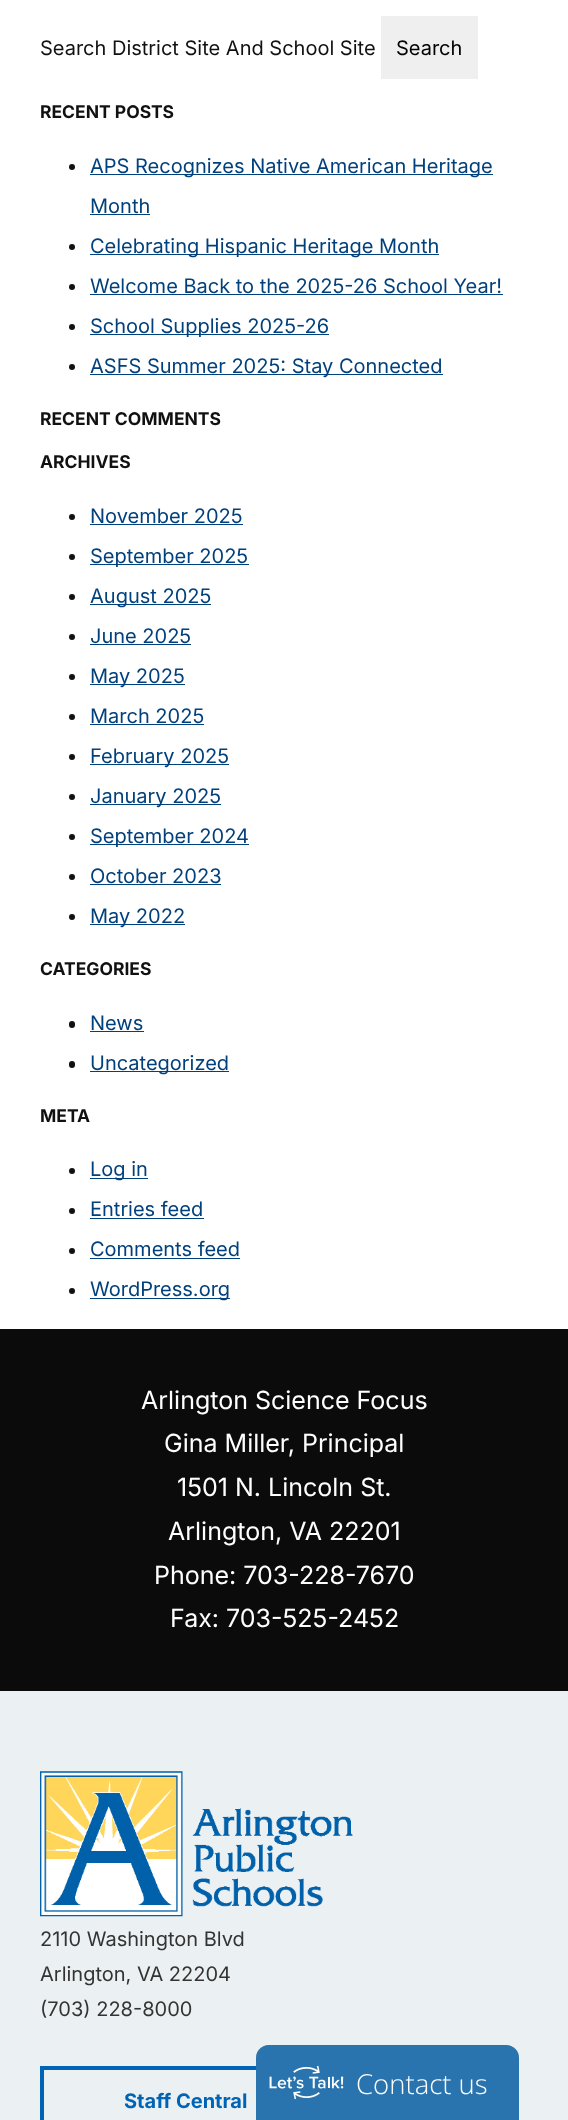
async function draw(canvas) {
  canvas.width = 568;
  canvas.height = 2120;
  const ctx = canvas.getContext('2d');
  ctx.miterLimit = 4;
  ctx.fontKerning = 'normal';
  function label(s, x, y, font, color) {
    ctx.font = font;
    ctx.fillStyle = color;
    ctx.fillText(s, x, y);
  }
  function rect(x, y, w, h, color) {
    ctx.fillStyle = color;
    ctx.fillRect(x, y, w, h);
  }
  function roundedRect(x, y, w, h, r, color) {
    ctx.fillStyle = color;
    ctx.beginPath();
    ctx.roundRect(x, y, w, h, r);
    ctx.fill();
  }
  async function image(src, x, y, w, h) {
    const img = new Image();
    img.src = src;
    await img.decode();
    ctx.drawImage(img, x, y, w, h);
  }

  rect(0, 0, 568, 2120, '#fff');
  label('Search District Site And School Site', 40, 55, '20px Inter', '#111');
  rect(381, 16, 97, 63, '#efefef');
  label('Search', 396, 55, '20px Inter', '#000');
  label('RECENT POSTS', 40, 118, 'bold 17.5px Inter', '#111');
  ctx.beginPath();
  ctx.arc(72, 167, 3, 0, 2 * Math.PI);
  ctx.fill();
  rect(90, 174, 403, 1, '#00407c');
  label('APS Recognizes Native American Heritage', 90, 173, '20px Inter', '#00407c');
  label('Month', 90, 213, '20px Inter', '#00407c');
  rect(90, 214, 60, 1, '#00407c');
  ctx.fillStyle = '#111';
  ctx.beginPath();
  ctx.arc(72, 247, 3, 0, 2 * Math.PI);
  ctx.fill();
  rect(90, 254, 349, 1, '#00407c');
  label('Celebrating Hispanic Heritage Month', 90, 253, '20px Inter', '#00407c');
  ctx.fillStyle = '#111';
  ctx.beginPath();
  ctx.arc(72, 287, 3, 0, 2 * Math.PI);
  ctx.fill();
  label('Welcome Back to the 2025-26 School Year!', 90, 293, '20px Inter', '#00407c');
  rect(90, 294, 413, 1, '#00407c');
  ctx.fillStyle = '#111';
  ctx.beginPath();
  ctx.arc(72, 327, 3, 0, 2 * Math.PI);
  ctx.fill();
  rect(90, 334, 239, 1, '#00407c');
  label('School Supplies 2025-26', 90, 333, '20px Inter', '#00407c');
  ctx.fillStyle = '#111';
  ctx.beginPath();
  ctx.arc(72, 367, 3, 0, 2 * Math.PI);
  ctx.fill();
  rect(90, 374, 353, 1, '#00407c');
  label('ASFS Summer 2025: Stay Connected', 90, 373, '20px Inter', '#00407c');
  label('RECENT COMMENTS', 40, 425, 'bold 17.5px Inter', '#111');
  label('ARCHIVES', 40, 468, 'bold 17.5px Inter', '#111');
  ctx.beginPath();
  ctx.arc(72, 517, 3, 0, 2 * Math.PI);
  ctx.fill();
  label('November 2025', 90, 523, '20px Inter', '#00407c');
  rect(90, 524, 153, 1, '#00407c');
  ctx.fillStyle = '#111';
  ctx.beginPath();
  ctx.arc(72, 557, 3, 0, 2 * Math.PI);
  ctx.fill();
  rect(90, 564, 159, 1, '#00407c');
  label('September 2025', 90, 563, '20px Inter', '#00407c');
  ctx.fillStyle = '#111';
  ctx.beginPath();
  ctx.arc(72, 597, 3, 0, 2 * Math.PI);
  ctx.fill();
  rect(90, 604, 121, 1, '#00407c');
  label('August 2025', 90, 603, '20px Inter', '#00407c');
  ctx.fillStyle = '#111';
  ctx.beginPath();
  ctx.arc(72, 637, 3, 0, 2 * Math.PI);
  ctx.fill();
  label('June 2025', 90, 643, '20px Inter', '#00407c');
  rect(90, 644, 101, 1, '#00407c');
  ctx.fillStyle = '#111';
  ctx.beginPath();
  ctx.arc(72, 677, 3, 0, 2 * Math.PI);
  ctx.fill();
  rect(90, 684, 95, 1, '#00407c');
  label('May 2025', 90, 683, '20px Inter', '#00407c');
  ctx.fillStyle = '#111';
  ctx.beginPath();
  ctx.arc(72, 717, 3, 0, 2 * Math.PI);
  ctx.fill();
  label('March 2025', 90, 723, '20px Inter', '#00407c');
  rect(90, 724, 114, 1, '#00407c');
  ctx.fillStyle = '#111';
  ctx.beginPath();
  ctx.arc(72, 757, 3, 0, 2 * Math.PI);
  ctx.fill();
  rect(90, 764, 139, 1, '#00407c');
  label('February 2025', 90, 763, '20px Inter', '#00407c');
  ctx.fillStyle = '#111';
  ctx.beginPath();
  ctx.arc(72, 797, 3, 0, 2 * Math.PI);
  ctx.fill();
  rect(90, 804, 131, 1, '#00407c');
  label('January 2025', 90, 803, '20px Inter', '#00407c');
  ctx.fillStyle = '#111';
  ctx.beginPath();
  ctx.arc(72, 837, 3, 0, 2 * Math.PI);
  ctx.fill();
  rect(90, 844, 159, 1, '#00407c');
  label('September 2024', 90, 843, '20px Inter', '#00407c');
  ctx.fillStyle = '#111';
  ctx.beginPath();
  ctx.arc(72, 877, 3, 0, 2 * Math.PI);
  ctx.fill();
  label('October 2023', 90, 883, '20px Inter', '#00407c');
  rect(90, 884, 131, 1, '#00407c');
  ctx.fillStyle = '#111';
  ctx.beginPath();
  ctx.arc(72, 917, 3, 0, 2 * Math.PI);
  ctx.fill();
  rect(90, 924, 95, 1, '#00407c');
  label('May 2022', 90, 923, '20px Inter', '#00407c');
  label('CATEGORIES', 40, 975, 'bold 17.5px Inter', '#111');
  roundedRect(69, 1021, 6, 7, 3, '#111');
  label('News', 90, 1030, '20px Inter', '#00407c');
  rect(90, 1031, 54, 1, '#00407c');
  roundedRect(69, 1061, 6, 7, 3, '#111');
  rect(90, 1071, 139, 1, '#00407c');
  label('Uncategorized', 90, 1070, '20px Inter', '#00407c');
  label('META', 40, 1122, 'bold 17.5px Inter', '#111');
  ctx.beginPath();
  ctx.arc(72, 1171, 3, 0, 2 * Math.PI);
  ctx.fill();
  rect(90, 1178, 58, 1, '#00407c');
  label('Log in', 90, 1176, '20px Inter', '#00407c');
  ctx.fillStyle = '#111';
  ctx.beginPath();
  ctx.arc(72, 1211, 3, 0, 2 * Math.PI);
  ctx.fill();
  label('Entries feed', 90, 1216, '20px Inter', '#00407c');
  rect(90, 1218, 114, 1, '#00407c');
  ctx.fillStyle = '#111';
  ctx.beginPath();
  ctx.arc(72, 1251, 3, 0, 2 * Math.PI);
  ctx.fill();
  label('Comments feed', 90, 1256, '20px Inter', '#00407c');
  rect(90, 1258, 150, 1, '#00407c');
  ctx.fillStyle = '#111';
  ctx.beginPath();
  ctx.arc(72, 1291, 3, 0, 2 * Math.PI);
  ctx.fill();
  rect(90, 1298, 140, 1, '#00407c');
  label('WordPress.org', 90, 1296, '20px Inter', '#00407c');
  rect(0, 1329, 568, 362, '#0b0b0b');
  label('Arlington Science Focus', 141, 1409, '25px Inter', '#fff');
  label('Gina Miller, Principal', 164, 1452, '25px Inter', '#fff');
  label('1501 N. Lincoln St.', 177, 1496, '25px Inter', '#fff');
  label('Arlington, VA 22201', 168, 1540, '25px Inter', '#fff');
  label('Phone: 703-228-7670', 154, 1584, '25px Inter', '#fff');
  label('Fax: 703-525-2452', 170, 1627, '25px Inter', '#fff');
  rect(0, 1691, 568, 429, '#ebf0f3');
  await image('assets/img1.png', 40, 1771, 313, 146);
  label('2110 Washington Blvd', 40, 1946, '20px Inter', '#333');
  label('Arlington, VA 22204', 40, 1981, '20px Inter', '#333');
  label('(703) 228-8000', 40, 2016, '20px Inter', '#333');
  ctx.strokeStyle = '#0064b5';
  ctx.lineWidth = 4;
  ctx.strokeRect(42, 2068, 287, 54);
  label('Staff Central', 124, 2108, 'bold 20px Inter', '#0064b5');
  ctx.fillStyle = '#00000038';
  ctx.filter = 'blur(0.5px)';
  ctx.beginPath();
  ctx.roundRect(256, 2045, 263, 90, 13);
  ctx.fill();
  ctx.filter = 'none';
  ctx.fillStyle = '#2974ae';
  ctx.beginPath();
  ctx.roundRect(256, 2045, 263, 75, [13, 13, 0, 0]);
  ctx.fill();
  await image('assets/img2.png', 269, 2065, 75, 35);
  label('Contact us', 356, 2094, '300 27.5px Open Sans', '#fff');
}

draw(document.querySelector('canvas'));
